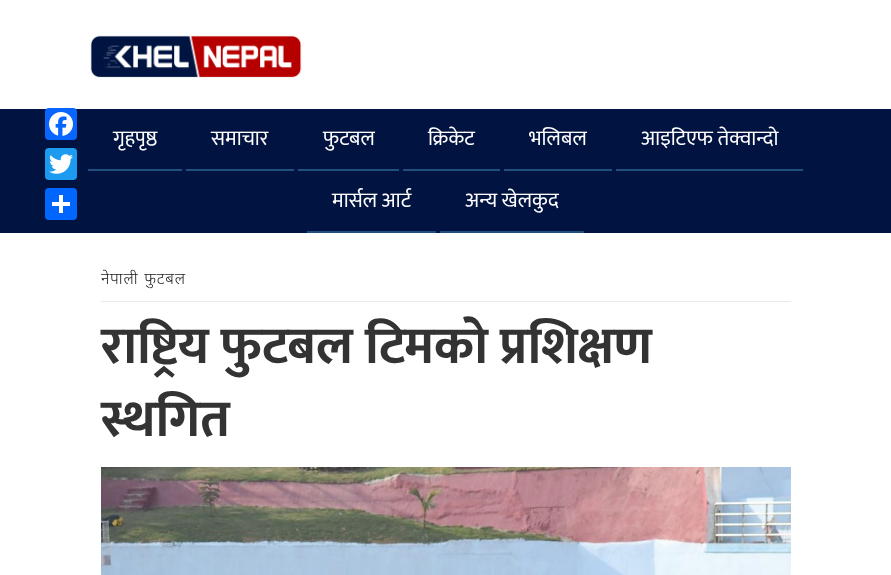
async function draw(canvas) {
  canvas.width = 891;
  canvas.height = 575;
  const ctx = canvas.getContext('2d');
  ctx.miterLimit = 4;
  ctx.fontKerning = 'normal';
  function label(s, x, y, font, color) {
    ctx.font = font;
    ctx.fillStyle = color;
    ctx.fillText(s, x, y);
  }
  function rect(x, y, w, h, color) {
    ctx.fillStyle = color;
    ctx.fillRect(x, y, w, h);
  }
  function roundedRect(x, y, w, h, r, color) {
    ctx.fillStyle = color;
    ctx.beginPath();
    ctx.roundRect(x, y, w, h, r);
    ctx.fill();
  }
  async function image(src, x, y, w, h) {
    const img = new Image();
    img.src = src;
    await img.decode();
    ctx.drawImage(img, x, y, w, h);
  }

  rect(0, 0, 891, 575, '#fff');
  await image('assets/img1.png', 90, 35, 212, 43);
  rect(0, 109, 891, 124, '#001341');
  rect(88, 169, 94, 2, '#204e7d');
  label('गृहपृष्ठ', 113, 145, '21px Mukta', '#fff');
  rect(186, 169, 108, 2, '#204e7d');
  label('समाचार', 211, 145, '21px Mukta', '#fff');
  rect(298, 169, 101, 2, '#204e7d');
  label('फुटबल', 323, 145, '21px Mukta', '#fff');
  rect(403, 169, 97, 2, '#204e7d');
  label('क्रिकेट', 428, 145, '21px Mukta', '#fff');
  rect(504, 169, 108, 2, '#204e7d');
  label('भलिबल', 529, 145, '21px Mukta', '#fff');
  rect(616, 169, 187, 2, '#204e7d');
  label('आइटिएफ तेक्वान्दो', 641, 145, '21px Mukta', '#fff');
  rect(307, 231, 129, 2, '#204e7d');
  label('मार्सल आर्ट', 332, 207, '21px Mukta', '#fff');
  rect(440, 231, 144, 2, '#204e7d');
  label('अन्य खेलकुद', 465, 207, '21px Mukta', '#fff');
  roundedRect(45, 108, 32, 32, 4, '#0866ff');
  await image('assets/img2.png', 49, 112, 24, 24);
  roundedRect(45, 148, 32, 32, 4, '#1d9bf0');
  await image('assets/img3.png', 49, 154, 24, 20);
  roundedRect(45, 188, 32, 32, 4, '#0166ff');
  rect(59, 195, 4, 18, '#fff');
  rect(52, 202, 18, 4, '#fff');
  rect(101, 301, 690, 1, '#e9e9e9');
  ctx.letterSpacing = '0.75px';
  ctx.wordSpacing = '1px';
  label('नेपाली फुटबल', 101, 284, '300 16px Noto Sans', '#191919');
  ctx.letterSpacing = '0px';
  ctx.wordSpacing = '0px';
  label('राष्ट्रिय फुटबल टिमको प्रशिक्षण', 101, 363, 'bold 52px Mukta', '#333');
  label('स्थगित', 101, 436, 'bold 52px Mukta', '#333');
  await image('assets/img4.png', 101, 467, 690, 108);
}

draw(document.querySelector('canvas'));
